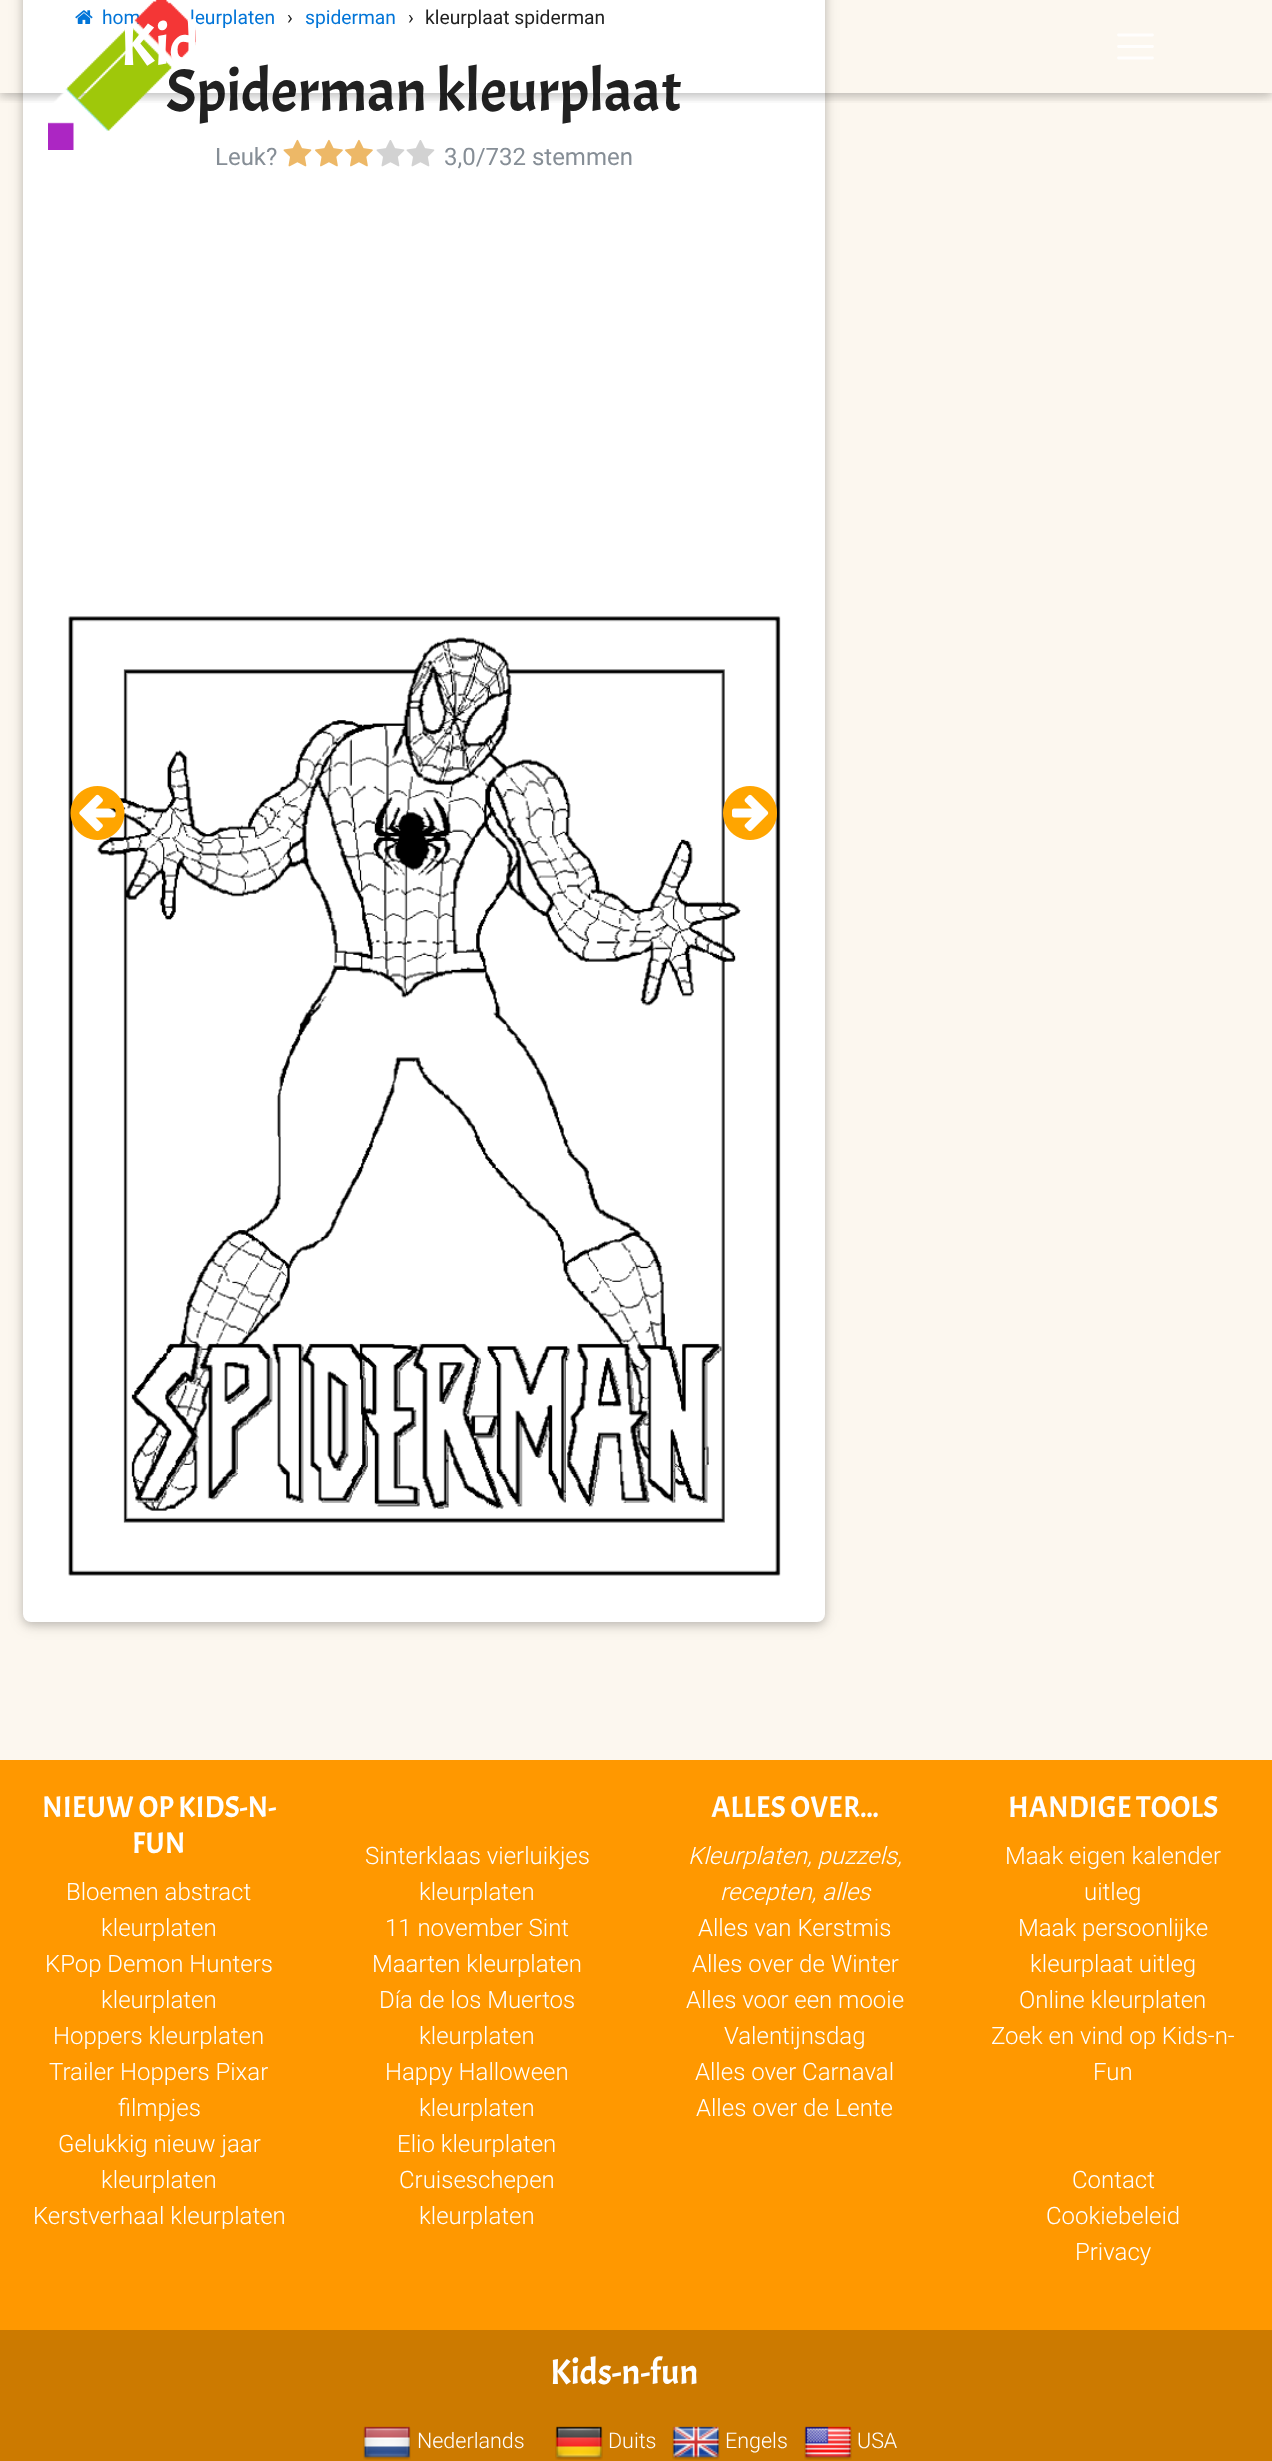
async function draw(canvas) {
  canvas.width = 1272;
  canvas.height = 2461;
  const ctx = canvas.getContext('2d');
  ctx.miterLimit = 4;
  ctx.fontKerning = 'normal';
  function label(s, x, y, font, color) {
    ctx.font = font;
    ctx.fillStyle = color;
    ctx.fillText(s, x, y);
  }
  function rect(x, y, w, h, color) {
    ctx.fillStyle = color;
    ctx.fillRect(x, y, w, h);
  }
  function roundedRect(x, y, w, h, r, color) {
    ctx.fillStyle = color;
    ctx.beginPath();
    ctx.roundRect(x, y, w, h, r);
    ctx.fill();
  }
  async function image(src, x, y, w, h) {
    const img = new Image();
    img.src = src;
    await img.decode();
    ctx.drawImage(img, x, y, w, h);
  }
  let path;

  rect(0, 0, 1272, 2461, '#fcf7ef');
  ctx.fillStyle = '#0000001f';
  ctx.filter = 'blur(7.5px)';
  ctx.beginPath();
  ctx.roundRect(23, -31, 802, 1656, 8);
  ctx.fill();
  ctx.filter = 'none';
  ctx.fillStyle = '#00000029';
  ctx.filter = 'blur(4px)';
  ctx.beginPath();
  ctx.roundRect(23, -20, 802, 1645, 8);
  ctx.fill();
  ctx.filter = 'none';
  roundedRect(23, -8, 802, 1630, 8, '#fff');
  await image('assets/img1.png', 75, 10, 18, 14);
  label('hom', 102, 24, '19.25px Roboto', '#0275d8');
  label('leurplaten', 190, 24, '19.25px Roboto', '#0275d8');
  label('›', 287, 24, '19.25px Roboto', '#212121');
  label('spiderman', 305, 24, '19.25px Roboto', '#0275d8');
  label('›', 408, 24, '19.25px Roboto', '#212121');
  label('kleurplaat spiderman', 425, 24, '19.25px Roboto', '#212121');
  label('Spiderman kleurplaat', 166, 111, '60px Acme', '#212121');
  label('Leuk?', 215, 165, '24px Roboto', '#868e96');
  await image('assets/img2.png', 283, 139, 29, 28);
  await image('assets/img3.png', 315, 139, 28, 28);
  await image('assets/img3.png', 345, 139, 28, 28);
  await image('assets/img4.png', 376, 140, 29, 27);
  await image('assets/img4.png', 406, 140, 29, 27);
  label('3,0/732 stemmen', 444, 165, '24px Roboto', '#868e96');
  await image('assets/img5.png', 68, 616, 713, 960);
  await image('assets/img6.png', 70, 786, 55, 54);
  await image('assets/img7.png', 723, 786, 54, 54);
  ctx.save();
  ctx.beginPath();
  ctx.rect(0, 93, 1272, 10);
  ctx.clip();
  ctx.fillStyle = '#0000001f';
  ctx.filter = 'blur(7.5px)';
  ctx.beginPath();
  ctx.rect(0, 3, 1272, 93);
  ctx.fill();
  ctx.filter = 'none';
  ctx.restore();
  ctx.save();
  ctx.beginPath();
  ctx.rect(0, 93, 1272, 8);
  ctx.clip();
  ctx.fillStyle = '#00000029';
  ctx.filter = 'blur(4px)';
  ctx.beginPath();
  ctx.rect(0, 3, 1272, 93);
  ctx.fill();
  ctx.filter = 'none';
  ctx.restore();
  await image('assets/img8.png', 48, 0, 148, 150);
  label('Kid', 120, 65, '60px Acme', '#fff');
  path = new Path2D('M1118.5 35H1152.5M1118.5 46.5H1152.5M1118.5 58H1152.5');
  ctx.strokeStyle = '#fffefd';
  ctx.lineWidth = 2.8;
  ctx.lineCap = 'round';
  ctx.stroke(path);
  rect(0, 1760, 1272, 570, '#ff9800');
  label('NIEUW OP KIDS-N-', 42, 1817, '30px Acme', '#fff');
  label('FUN', 132, 1853, '30px Acme', '#fff');
  label('Bloemen abstract', 66, 1900, '300 24px Roboto', '#fff');
  label('kleurplaten', 101, 1936, '300 24px Roboto', '#fff');
  label('KPop Demon Hunters', 45, 1972, '300 24px Roboto', '#fff');
  label('kleurplaten', 101, 2008, '300 24px Roboto', '#fff');
  label('Hoppers kleurplaten', 53, 2044, '300 24px Roboto', '#fff');
  label('Trailer Hoppers Pixar', 49, 2080, '300 24px Roboto', '#fff');
  label('filmpjes', 118, 2116, '300 24px Roboto', '#fff');
  label('Gelukkig nieuw jaar', 58, 2152, '300 24px Roboto', '#fff');
  label('kleurplaten', 101, 2188, '300 24px Roboto', '#fff');
  label('Kerstverhaal kleurplaten', 33, 2224, '300 24px Roboto', '#fff');
  label('Sinterklaas vierluikjes', 365, 1864, '300 24px Roboto', '#fff');
  label('kleurplaten', 419, 1900, '300 24px Roboto', '#fff');
  label('11 november Sint', 385, 1936, '300 24px Roboto', '#fff');
  label('Maarten kleurplaten', 372, 1972, '300 24px Roboto', '#fff');
  label('Día de los Muertos', 379, 2008, '300 24px Roboto', '#fff');
  label('kleurplaten', 419, 2044, '300 24px Roboto', '#fff');
  label('Happy Halloween', 385, 2080, '300 24px Roboto', '#fff');
  label('kleurplaten', 419, 2116, '300 24px Roboto', '#fff');
  label('Elio kleurplaten', 397, 2152, '300 24px Roboto', '#fff');
  label('Cruiseschepen', 399, 2188, '300 24px Roboto', '#fff');
  label('kleurplaten', 419, 2224, '300 24px Roboto', '#fff');
  label('ALLES OVER...', 711, 1817, '30px Acme', '#fff');
  label('Kleurplaten, puzzels,', 688, 1864, 'italic 300 24px Roboto', '#fff');
  label('recepten, alles', 720, 1900, 'italic 300 24px Roboto', '#fff');
  label('Alles van Kerstmis', 698, 1936, '300 24px Roboto', '#fff');
  label('Alles over de Winter', 692, 1972, '300 24px Roboto', '#fff');
  label('Alles voor een mooie', 686, 2008, '300 24px Roboto', '#fff');
  label('Valentijnsdag', 724, 2044, '300 24px Roboto', '#fff');
  label('Alles over Carnaval', 695, 2080, '300 24px Roboto', '#fff');
  label('Alles over de Lente', 696, 2116, '300 24px Roboto', '#fff');
  label('HANDIGE TOOLS', 1008, 1817, '30px Acme', '#fff');
  label('Maak eigen kalender', 1005, 1864, '300 24px Roboto', '#fff');
  label('uitleg', 1084, 1900, '300 24px Roboto', '#fff');
  label('Maak persoonlijke', 1018, 1936, '300 24px Roboto', '#fff');
  label('kleurplaat uitleg', 1030, 1972, '300 24px Roboto', '#fff');
  label('Online kleurplaten', 1019, 2008, '300 24px Roboto', '#fff');
  label('Zoek en vind op Kids-n-', 991, 2044, '300 24px Roboto', '#fff');
  label('Fun', 1093, 2080, '300 24px Roboto', '#fff');
  label('Contact', 1072, 2188, '300 24px Roboto', '#fff');
  label('Cookiebeleid', 1046, 2224, '300 24px Roboto', '#fff');
  label('Privacy', 1075, 2260, '300 24px Roboto', '#fff');
  rect(0, 2330, 1272, 131, '#cc7a00');
  label('Kids-n-fun', 550, 2384, '36px Acme', '#fff');
  await image('assets/img9.png', 363, 2426, 48, 34);
  label('Nederlands', 417, 2448, '300 21.5px Roboto', '#fff');
  await image('assets/img10.png', 555, 2426, 48, 34);
  label('Duits', 608, 2448, '300 21.5px Roboto', '#fff');
  await image('assets/img11.png', 672, 2426, 48, 34);
  label('Engels', 725, 2448, '300 21.5px Roboto', '#fff');
  await image('assets/img12.png', 804, 2426, 48, 34);
  label('USA', 857, 2448, '300 21.5px Roboto', '#fff');
}

draw(document.querySelector('canvas'));
